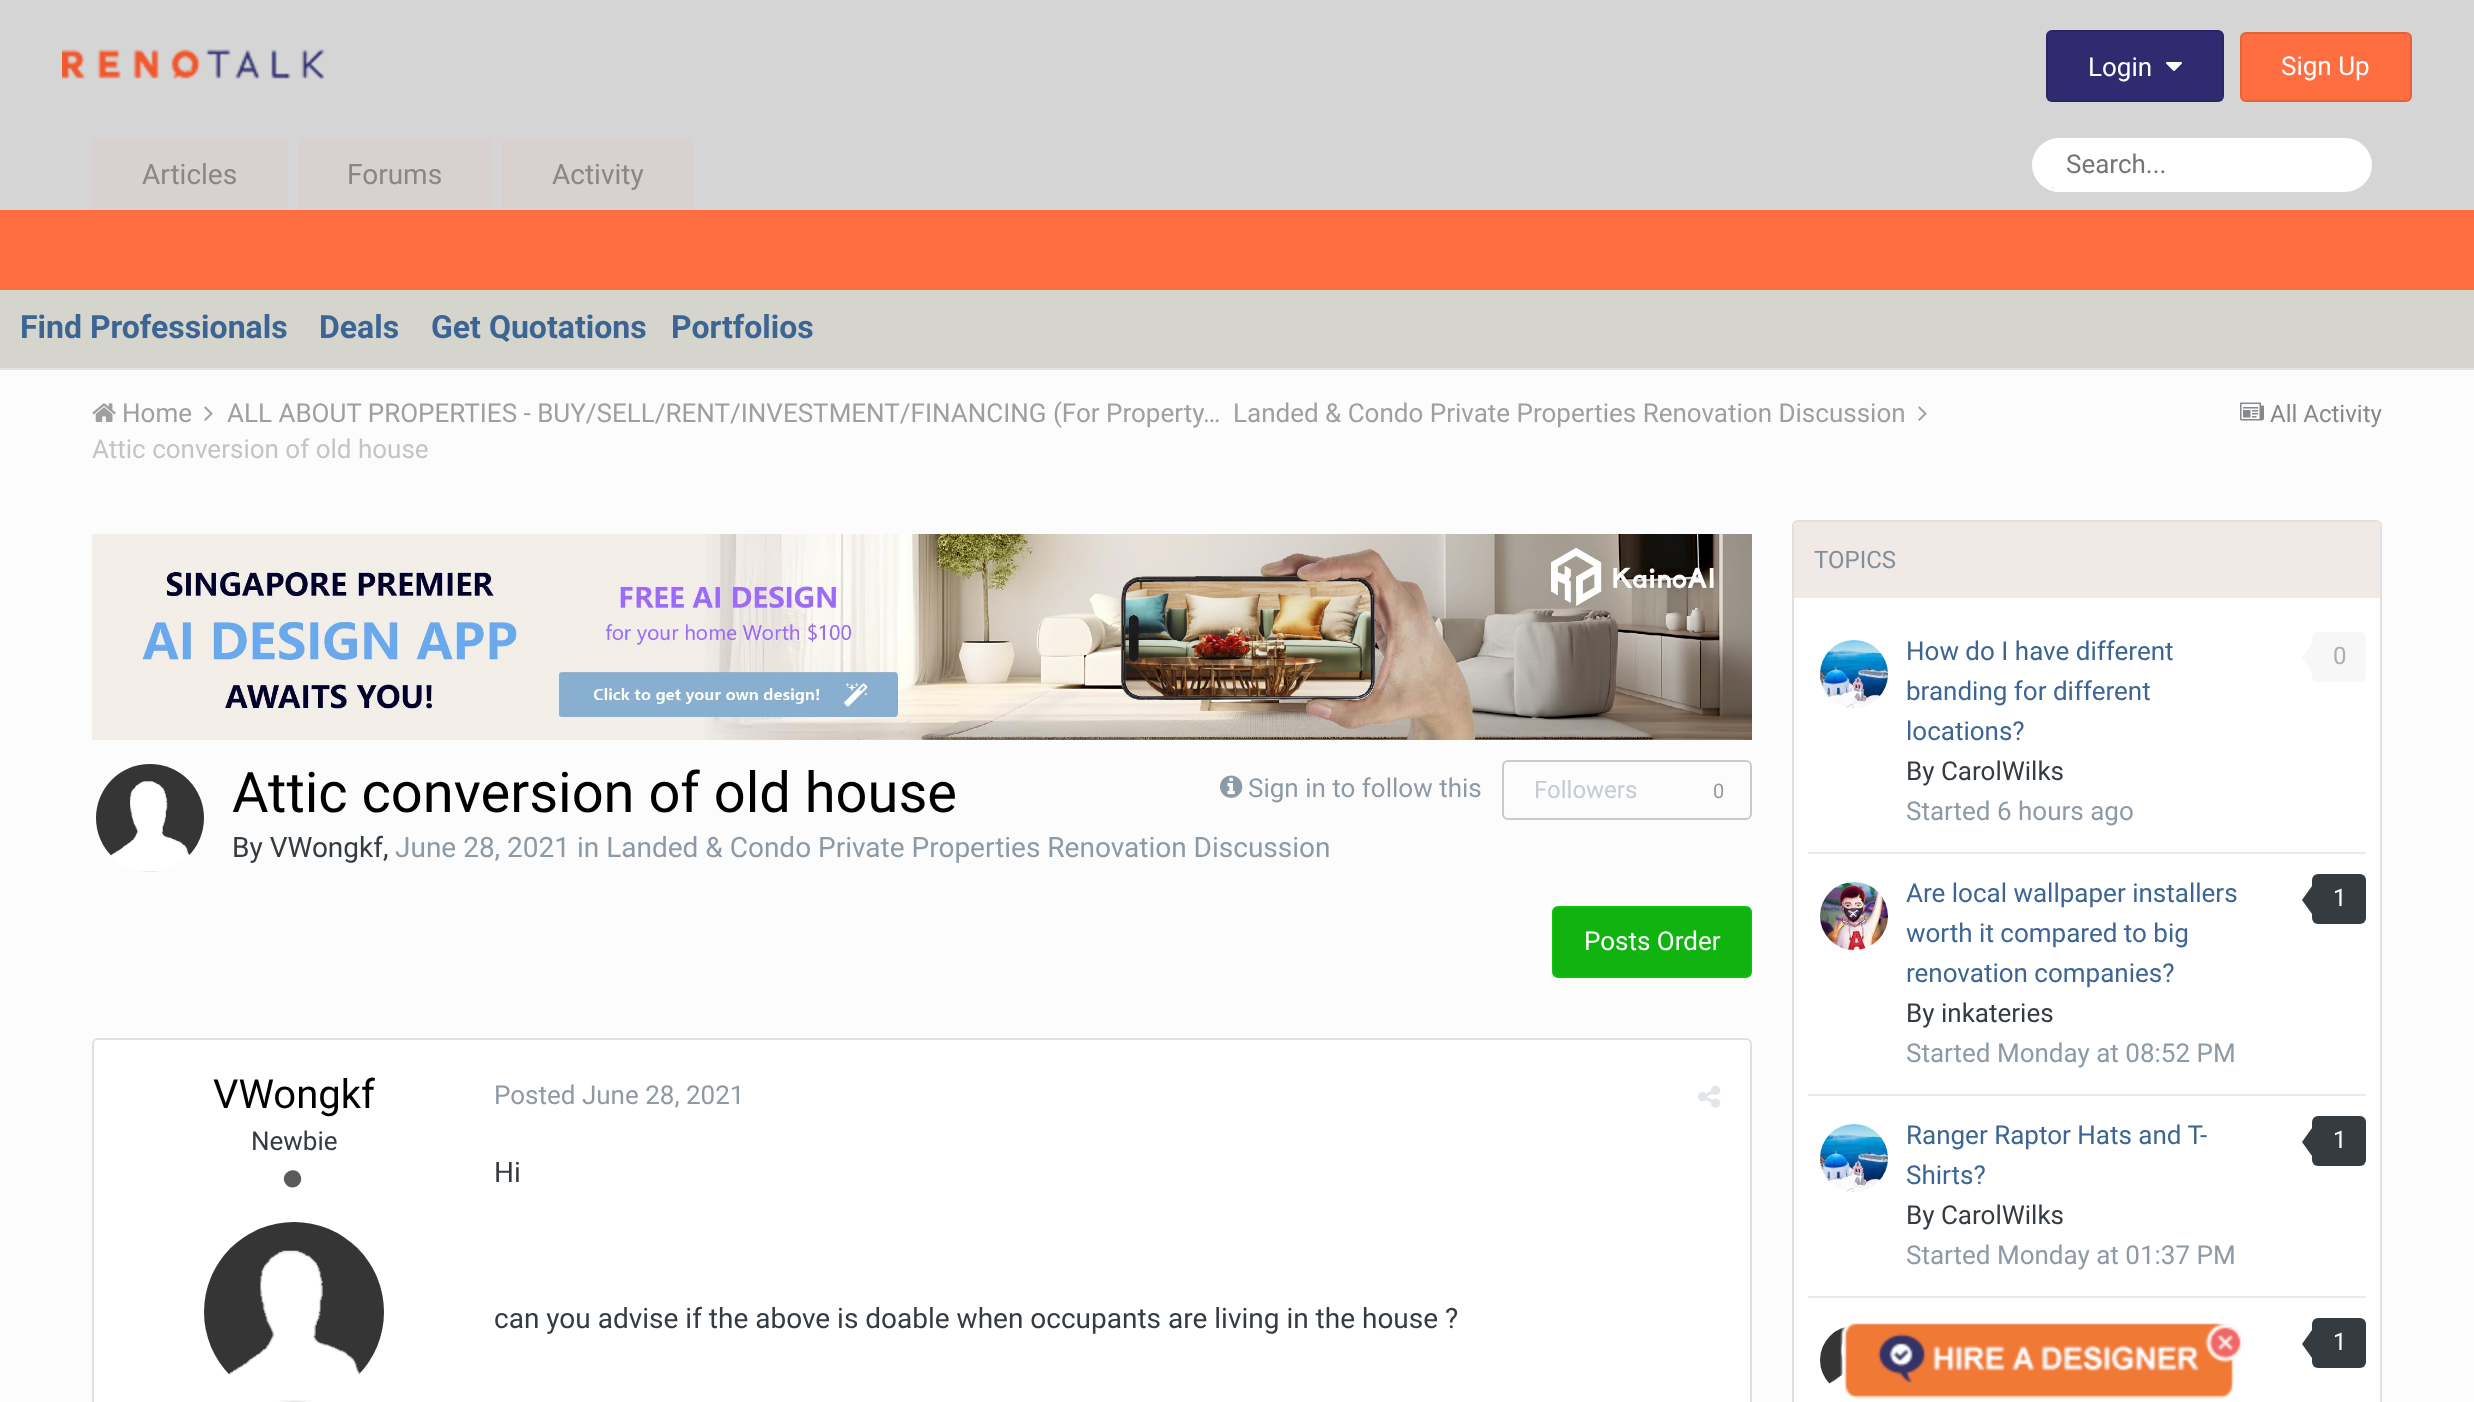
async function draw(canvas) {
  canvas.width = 2474;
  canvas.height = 1402;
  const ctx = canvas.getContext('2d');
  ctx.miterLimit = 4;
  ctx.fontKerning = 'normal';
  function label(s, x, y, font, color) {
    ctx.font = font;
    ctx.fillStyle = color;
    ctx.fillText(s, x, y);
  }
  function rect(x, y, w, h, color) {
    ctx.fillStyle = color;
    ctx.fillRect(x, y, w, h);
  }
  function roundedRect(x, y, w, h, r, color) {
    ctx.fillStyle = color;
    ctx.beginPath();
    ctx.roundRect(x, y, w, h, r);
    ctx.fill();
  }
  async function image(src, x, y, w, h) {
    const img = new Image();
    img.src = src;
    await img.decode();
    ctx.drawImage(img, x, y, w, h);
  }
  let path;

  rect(0, 0, 2474, 1402, '#fcfcfc');
  rect(0, 368, 2474, 2, '#e3e3e3');
  rect(0, 0, 2474, 210, '#d6d5d5');
  await image('assets/img1.png', 62, 49, 262, 30);
  roundedRect(2046, 30, 178, 72, 6, '#2e2b70');
  ctx.beginPath();
  ctx.roundRect(2047, 31, 176, 70, 5);
  ctx.strokeStyle = '#0000001a';
  ctx.lineWidth = 2;
  ctx.stroke();
  label('Login', 2088, 76, '26px Roboto', '#fff');
  await image('assets/img2.png', 2166, 62, 16, 9);
  roundedRect(2240, 32, 172, 70, 6, '#ff6e40');
  ctx.beginPath();
  ctx.roundRect(2241, 33, 170, 68, 5);
  ctx.stroke();
  label('Sign Up', 2281, 75, '26px Roboto', '#fff');
  rect(0, 210, 2474, 80, '#ff6e40');
  ctx.fillStyle = '#d8d1cf';
  ctx.beginPath();
  ctx.roundRect(92, 138, 196, 72, [4, 4, 0, 0]);
  ctx.fill();
  label('Articles', 142, 184, '28px Roboto', '#888686');
  ctx.fillStyle = '#d8d1cf';
  ctx.beginPath();
  ctx.roundRect(298, 138, 194, 72, [4, 4, 0, 0]);
  ctx.fill();
  label('Forums', 347, 184, '28px Roboto', '#888686');
  ctx.fillStyle = '#d8d1cf';
  ctx.beginPath();
  ctx.roundRect(502, 138, 192, 72, [4, 4, 0, 0]);
  ctx.fill();
  label('Activity', 552, 184, '28px Roboto', '#888686');
  roundedRect(2032, 138, 340, 54, 27, '#fff');
  ctx.beginPath();
  ctx.roundRect(2053, 147, 56, 42, 3);
  ctx.strokeStyle = '#767676';
  ctx.stroke();
  roundedRect(2052, 138, 260, 54, 6, '#fff');
  label('Search...', 2066, 173, '26px Roboto', '#757575');
  rect(0, 290, 2474, 78, '#d5d4cd');
  label('Find Professionals', 20, 338, 'bold 32px Roboto', '#3d6594');
  label('Deals', 319, 338, 'bold 32px Roboto', '#3d6594');
  label('Get Quotations', 431, 338, 'bold 32px Roboto', '#3d6594');
  label('Portfolios', 671, 338, 'bold 32px Roboto', '#3d6594');
  await image('assets/img3.png', 92, 403, 24, 19);
  label('Home', 122, 422, '26px Roboto', '#9f9f9f');
  await image('assets/img4.png', 204, 406, 9, 15);
  label('ALL ABOUT PROPERTIES - BUY/SELL/RENT/INVESTMENT/FINANCING (For Property…', 227, 422, '26px Roboto', '#9f9f9f');
  label('Landed & Condo Private Properties Renovation Discussion', 1233, 422, '26px Roboto', '#9f9f9f');
  await image('assets/img4.png', 1918, 406, 9, 15);
  label('Attic conversion of old house', 92, 458, '26px Roboto', '#c4c4c4');
  await image('assets/img5.png', 2240, 402, 24, 19);
  label('All Activity', 2270, 422, '24px Roboto', '#85898c');
  await image('assets/img6.png', 92, 534, 1660, 206);
  await image('assets/img7.png', 96, 764, 108, 108);
  label('Attic conversion of old house', 232, 812, '56px Roboto', '#000');
  label('By VWongkf,', 232, 857, '28px Roboto', '#353c41');
  label('June 28, 2021 in Landed & Condo Private Properties Renovation Discussion', 395, 857, '28px Roboto', '#8d9aa6');
  await image('assets/img8.png', 1220, 775, 23, 23);
  label('Sign in to follow this', 1248, 797, '26px Roboto', '#8d9aa6');
  ctx.beginPath();
  ctx.roundRect(1503, 761, 248, 58, 5);
  ctx.strokeStyle = '#c5cbd1';
  ctx.stroke();
  label('Followers', 1534, 798, '24px Roboto', '#c5cbd1');
  label('0', 1713, 798, '20px Roboto', '#989898');
  ctx.fillStyle = '#10b30f';
  ctx.beginPath();
  ctx.roundRect(1553, 907, 198, 70, 5);
  ctx.fill();
  ctx.strokeStyle = '#0dc10c';
  ctx.stroke();
  label('Posts Order', 1584, 950, '26px Roboto', '#fff');
  ctx.beginPath();
  ctx.roundRect(93, 1039, 1658, 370, 5);
  ctx.fill();
  ctx.strokeStyle = '#e0e0e0';
  ctx.stroke();
  label('VWongkf', 213, 1108, '40px Roboto', '#000');
  label('Newbie', 251, 1150, '26px Roboto', '#353c41');
  ctx.fillStyle = '#5a5a5a';
  path = new Path2D('M300 1174.5C305.5 1184.5 291 1193 285 1183C279.5 1173.5 294.5 1165 300 1174.5Z');
  ctx.fill(path);
  await image('assets/img9.png', 204, 1222, 180, 180);
  label('Posted June 28, 2021', 494, 1104, '26px Roboto', '#8d9aa6');
  await image('assets/img10.png', 1698, 1085, 23, 23);
  label('Hi', 494, 1182, '28px Roboto', '#353c41');
  label('can you advise if the above is doable when occupants are living in the house ?', 494, 1328, '28px Roboto', '#353c41');
  ctx.fillStyle = '#fff';
  ctx.beginPath();
  ctx.roundRect(1793, 521, 588, 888, 5);
  ctx.fill();
  ctx.stroke();
  ctx.fillStyle = '#f0e9e6';
  ctx.beginPath();
  ctx.roundRect(1794, 522, 586, 76, [4, 4, 0, 0]);
  ctx.fill();
  label('TOPICS', 1814, 568, '24px Roboto', '#828e99');
  rect(1808, 852, 558, 2, '#ebebeb');
  await image('assets/img11.png', 1820, 640, 68, 68);
  label('How do I have different', 1906, 660, '26px Roboto', '#3d6594');
  label('branding for different', 1906, 700, '26px Roboto', '#3d6594');
  label('locations?', 1906, 740, '26px Roboto', '#3d6594');
  roundedRect(2312, 632, 54, 50, 6, '#f7f7f7');
  path = new Path2D('M2312 644V672L2302 658Z');
  ctx.fill(path);
  label('0', 2333, 664, '24px Roboto', '#adadad');
  label('By CarolWilks', 1906, 780, '26px Roboto', '#353c41');
  label('Started 6 hours ago', 1906, 820, '26px Roboto', '#8d9aa6');
  rect(1808, 1094, 558, 2, '#ebebeb');
  await image('assets/img12.png', 1820, 882, 68, 68);
  label('Are local wallpaper installers', 1906, 902, '26px Roboto', '#3d6594');
  label('worth it compared to big', 1906, 942, '26px Roboto', '#3d6594');
  label('renovation companies?', 1906, 982, '26px Roboto', '#3d6594');
  roundedRect(2312, 874, 54, 50, 6, '#353c41');
  path = new Path2D('M2312 886V914L2302 900Z');
  ctx.fill(path);
  label('1', 2333, 906, '24px Roboto', '#fff');
  label('By inkateries', 1906, 1022, '26px Roboto', '#353c41');
  label('Started Monday at 08:52 PM', 1906, 1062, '26px Roboto', '#8d9aa6');
  rect(1808, 1296, 558, 2, '#ebebeb');
  await image('assets/img11.png', 1820, 1124, 68, 68);
  label('Ranger Raptor Hats and T-', 1906, 1144, '26px Roboto', '#3d6594');
  label('Shirts?', 1906, 1184, '26px Roboto', '#3d6594');
  roundedRect(2312, 1116, 54, 50, 6, '#353c41');
  path = new Path2D('M2312 1128V1156L2302 1142Z');
  ctx.fill(path);
  label('1', 2333, 1148, '24px Roboto', '#fff');
  label('By CarolWilks', 1906, 1224, '26px Roboto', '#353c41');
  label('Started Monday at 01:37 PM', 1906, 1264, '26px Roboto', '#8d9aa6');
  await image('assets/img13.png', 1820, 1326, 27, 68);
  roundedRect(2312, 1318, 54, 50, 6, '#353c41');
  path = new Path2D('M2312 1330V1358L2302 1344Z');
  ctx.fill(path);
  label('1', 2333, 1350, '24px Roboto', '#fff');
  await image('assets/img14.png', 1840, 1323, 404, 76);
}

draw(document.querySelector('canvas'));
